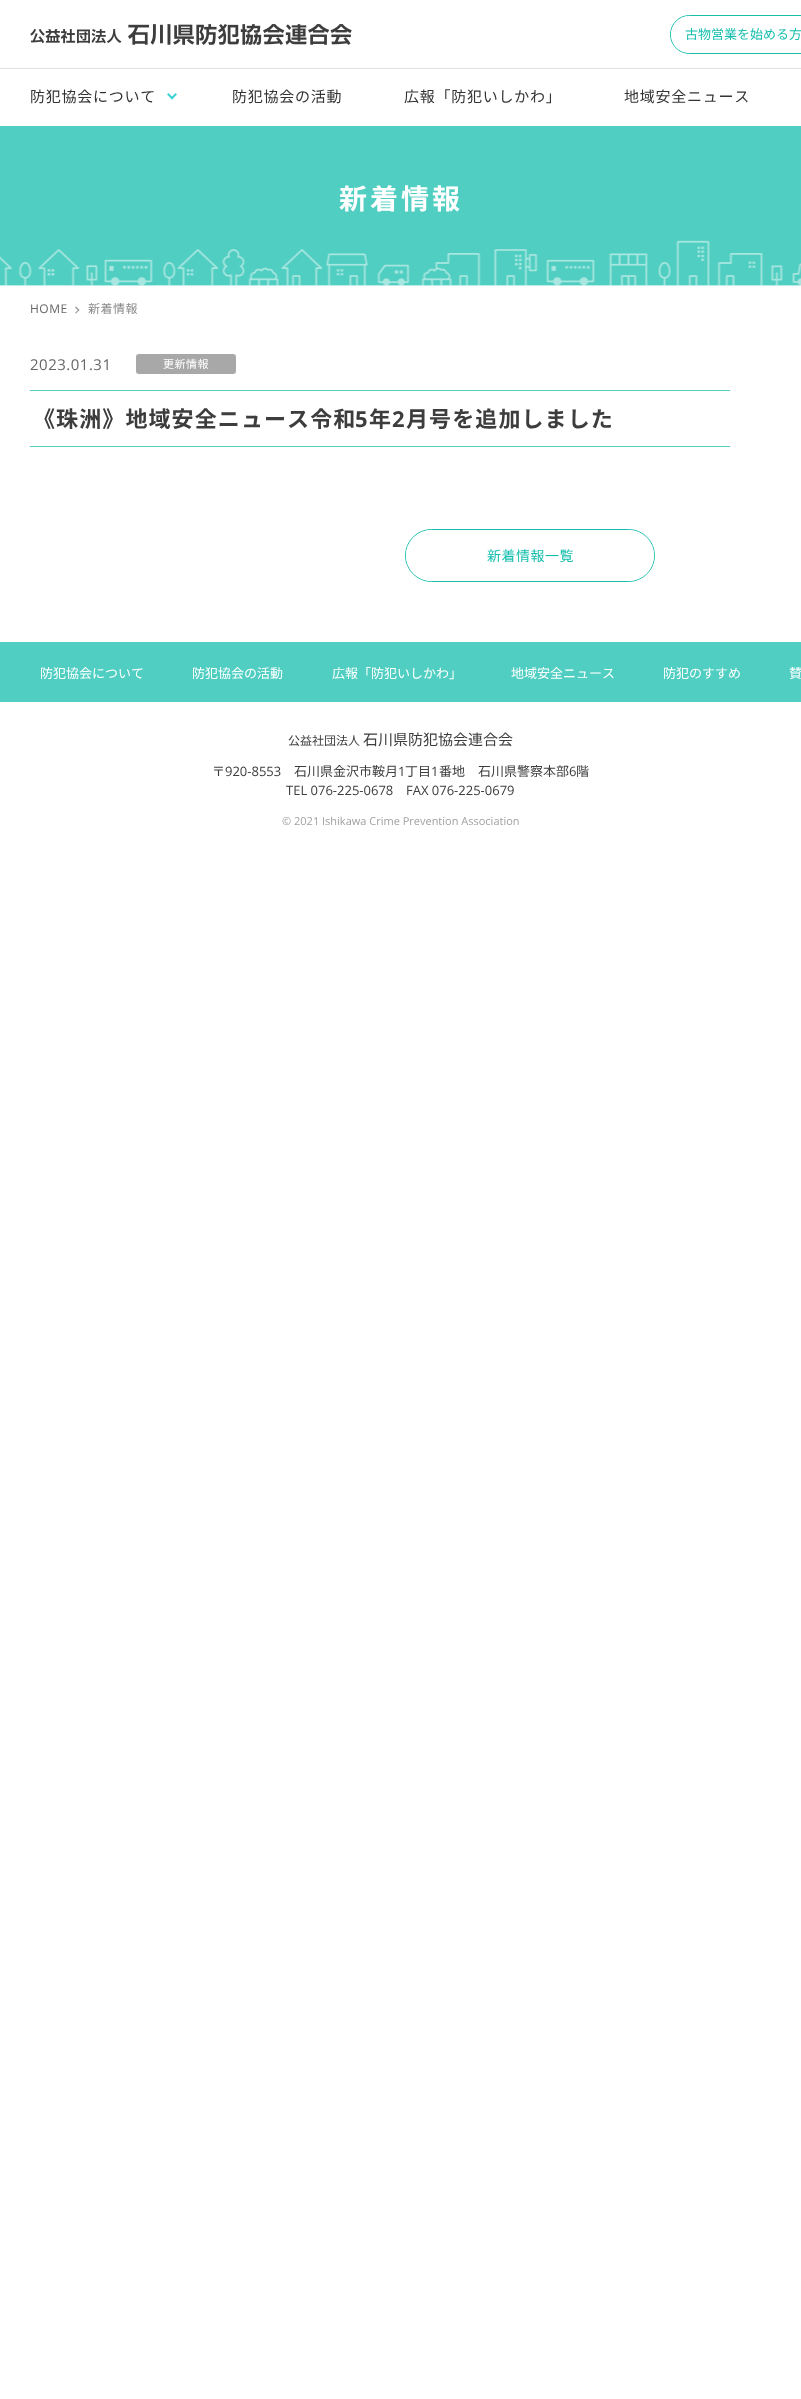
async function draw(canvas) {
  canvas.width = 801;
  canvas.height = 2399;
  const ctx = canvas.getContext('2d');
  ctx.miterLimit = 4;
  ctx.fontKerning = 'normal';
  function label(s, x, y, font, color) {
    ctx.font = font;
    ctx.fillStyle = color;
    ctx.fillText(s, x, y);
  }
  function rect(x, y, w, h, color) {
    ctx.fillStyle = color;
    ctx.fillRect(x, y, w, h);
  }
  function roundedRect(x, y, w, h, r, color) {
    ctx.fillStyle = color;
    ctx.beginPath();
    ctx.roundRect(x, y, w, h, r);
    ctx.fill();
  }
  async function image(src, x, y, w, h) {
    const img = new Image();
    img.src = src;
    await img.decode();
    ctx.drawImage(img, x, y, w, h);
  }
  let path;

  rect(0, 0, 801, 2399, '#fff');
  await image('assets/img1.png', 30, 24, 322, 21);
  ctx.beginPath();
  ctx.roundRect(670.5, 15.5, 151, 38, 19);
  ctx.strokeStyle = '#15bead';
  ctx.stroke();
  roundedRect(671, 16, 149, 37, 18.5, '#fff');
  label('古物営業を始める方', 685, 39, '13px Noto Sans JP', '#15bead');
  rect(0, 68, 801, 1, '#e0e0e0');
  ctx.letterSpacing = '0.75px';
  label('防犯協会について', 30, 102, '15px Noto Sans JP', '#333');
  ctx.fillStyle = '#40d2d2';
  path = new Path2D('M177 94.5L172 99.5L170.5 98L175.5 93Z');
  ctx.fill(path);
  path = new Path2D('M173.5 98L172 99.5L167 94.5L168.5 93Z');
  ctx.fill(path);
  label('防犯協会の活動', 232, 102, '15px Noto Sans JP', '#333');
  label('広報「防犯いしかわ」', 404, 102, '15px Noto Sans JP', '#333');
  label('地域安全ニュース', 624, 102, '15px Noto Sans JP', '#333');
  rect(0, 126, 801, 160, '#4fcec1');
  await image('assets/img2.png', 0, 240, 801, 46);
  ctx.letterSpacing = '3px';
  label('新着情報', 339, 209, 'bold 28px Noto Sans JP', '#fff');
  ctx.letterSpacing = '0.5px';
  label('HOME', 30, 313, '12px Open Sans', '#666');
  ctx.fillStyle = '#999';
  path = new Path2D('M76 306.5L79.5 310L78.5 311L75 307.5Z');
  ctx.fill(path);
  path = new Path2D('M78.5 309.5L79.5 310L76 313.5L75 313Z');
  ctx.fill(path);
  label('新着情報', 88, 313, '12px Noto Sans JP', '#888');
  label('2023.01.31', 30, 370, '15px Open Sans', '#666');
  roundedRect(136, 354, 100, 20, 3, '#a8a8a8');
  label('更新情報', 163, 368, '11px Noto Sans JP', '#fff');
  rect(30, 390, 700, 1, '#4fcec1');
  rect(30, 446, 700, 1, '#4fcec1');
  ctx.letterSpacing = '1.1px';
  label('《珠洲》地域安全ニュース令和', 33, 427, 'bold 22px Noto Sans JP', '#3d3d3d');
  label('5', 355, 427, 'bold 22px Open Sans', '#3d3d3d');
  label('年', 369, 427, 'bold 22px Noto Sans JP', '#3d3d3d');
  label('2', 392, 427, 'bold 22px Open Sans', '#3d3d3d');
  label('月号を追加しました', 406, 427, 'bold 22px Noto Sans JP', '#3d3d3d');
  ctx.beginPath();
  ctx.roundRect(405.5, 529.5, 249, 52, 26);
  ctx.stroke();
  roundedRect(406, 530, 248, 51, 25.5, '#fff');
  ctx.letterSpacing = '0.5px';
  label('新着情報一覧', 487, 561, '14px Noto Sans JP', '#15bead');
  rect(0, 642, 801, 60, '#4fcec1');
  ctx.letterSpacing = '0px';
  label('防犯協会について', 40, 678, '13px Noto Sans JP', '#fff');
  label('防犯協会の活動', 192, 678, '13px Noto Sans JP', '#fff');
  label('広報「防犯いしかわ」', 332, 678, '13px Noto Sans JP', '#fff');
  label('地域安全ニュース', 511, 678, '13px Noto Sans JP', '#fff');
  label('防犯のすすめ', 663, 678, '13px Noto Sans JP', '#fff');
  label('賛', 789, 678, '13px Noto Sans JP', '#fff');
  label('公益社団法人', 288, 745, '12px Noto Sans JP', '#3d3d3d');
  label('石川県防犯協会連合会', 363, 745, '15px Noto Sans JP', '#3d3d3d');
  label('〒', 212, 776, '13px Noto Sans JP', '#3d3d3d');
  label('920-8553', 225, 776, '13px Open Sans', '#3d3d3d');
  label('石川県金沢市鞍月', 294, 776, '13px Noto Sans JP', '#3d3d3d');
  label('1', 398, 776, '13px Open Sans', '#3d3d3d');
  label('丁目', 405, 776, '13px Noto Sans JP', '#3d3d3d');
  label('1', 431, 776, '13px Open Sans', '#3d3d3d');
  label('番地　石川県警察本部', 439, 776, '13px Noto Sans JP', '#3d3d3d');
  label('6', 569, 776, '13px Open Sans', '#3d3d3d');
  label('階', 576, 776, '13px Noto Sans JP', '#3d3d3d');
  label('TEL 076-225-0678', 286, 795, '13px Open Sans', '#3d3d3d');
  label('FAX 076-225-0679', 406, 795, '13px Open Sans', '#3d3d3d');
  label('© 2021 Ishikawa Crime Prevention Association', 282, 825, '11px Open Sans', '#a1a1a1');
}

draw(document.querySelector('canvas'));
